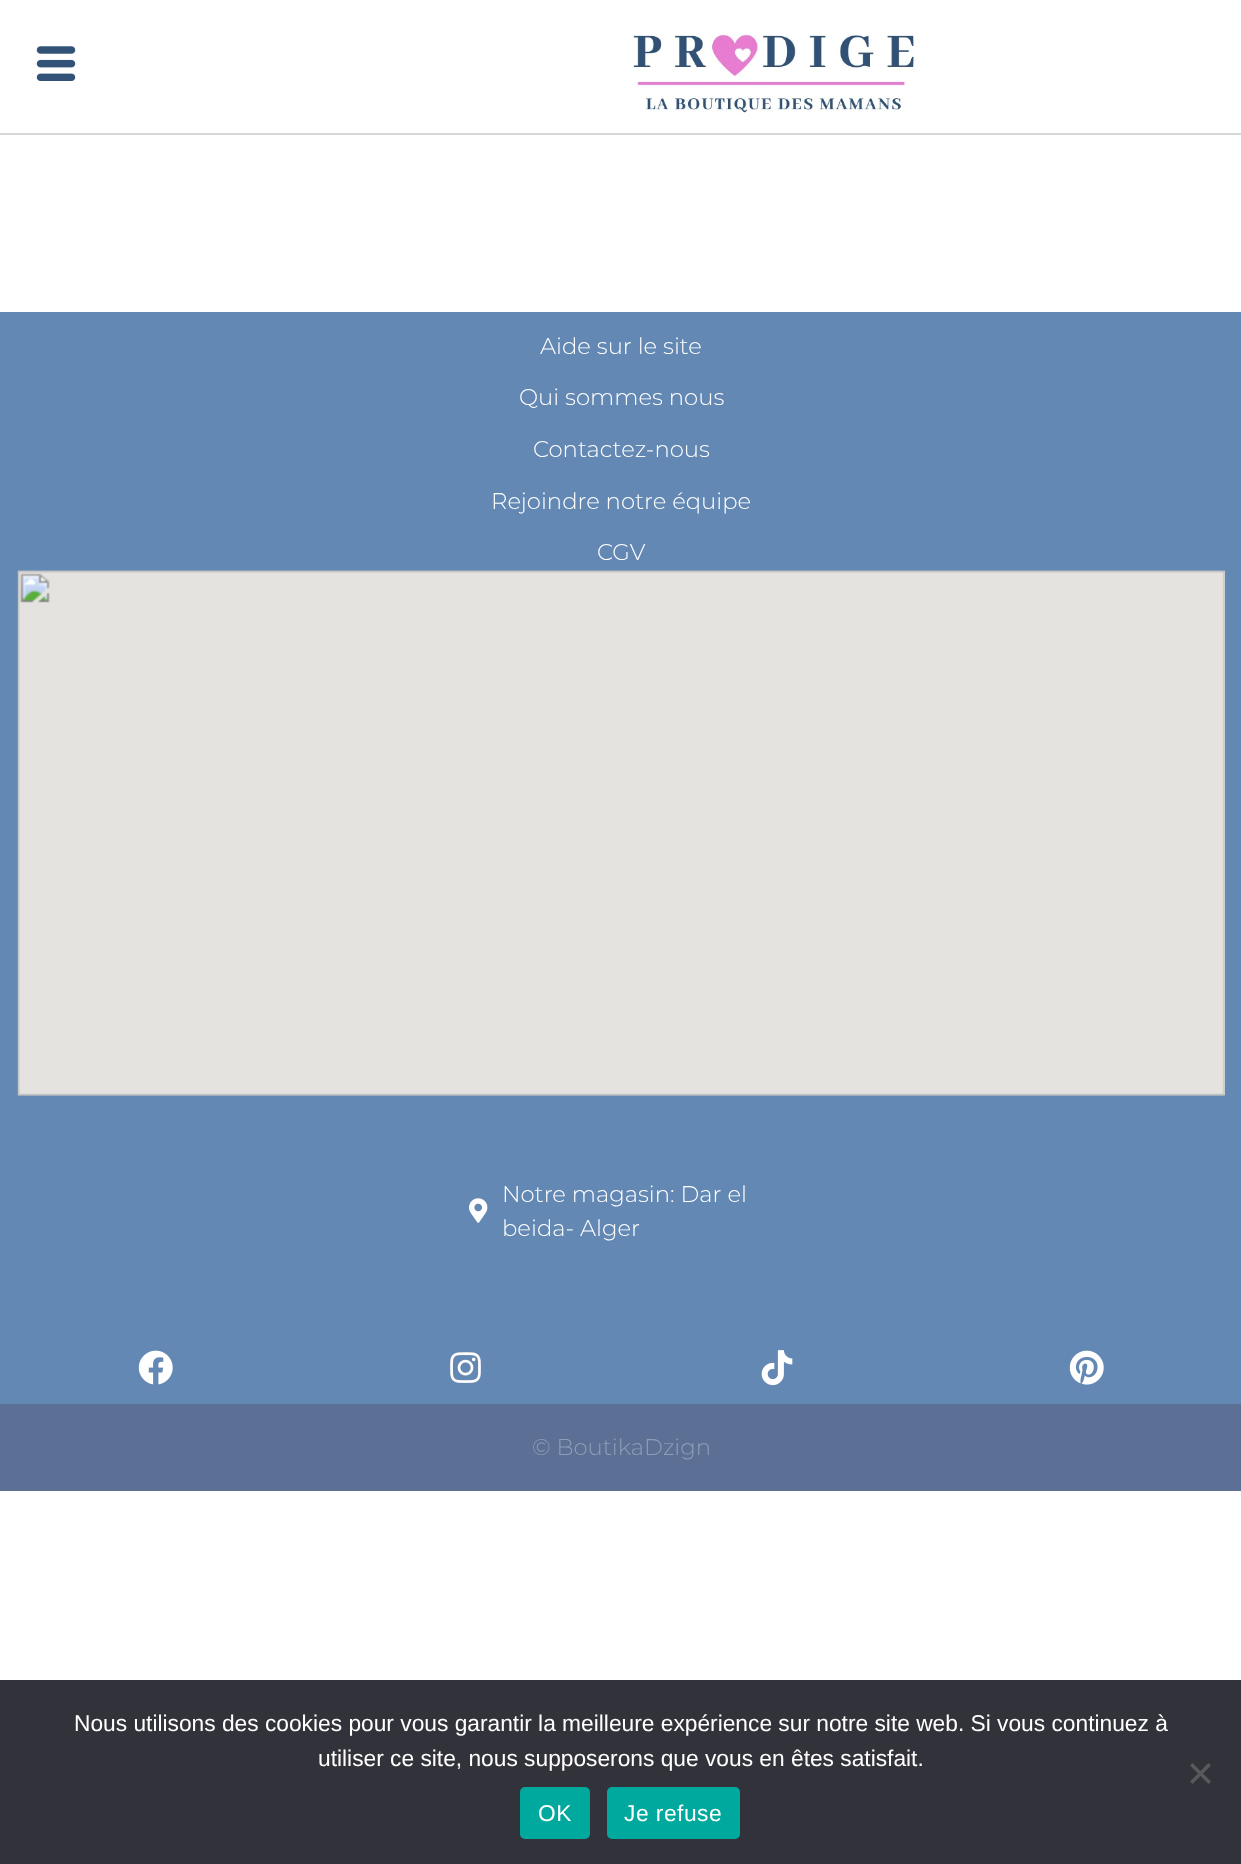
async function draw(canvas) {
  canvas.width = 1241;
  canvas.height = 1864;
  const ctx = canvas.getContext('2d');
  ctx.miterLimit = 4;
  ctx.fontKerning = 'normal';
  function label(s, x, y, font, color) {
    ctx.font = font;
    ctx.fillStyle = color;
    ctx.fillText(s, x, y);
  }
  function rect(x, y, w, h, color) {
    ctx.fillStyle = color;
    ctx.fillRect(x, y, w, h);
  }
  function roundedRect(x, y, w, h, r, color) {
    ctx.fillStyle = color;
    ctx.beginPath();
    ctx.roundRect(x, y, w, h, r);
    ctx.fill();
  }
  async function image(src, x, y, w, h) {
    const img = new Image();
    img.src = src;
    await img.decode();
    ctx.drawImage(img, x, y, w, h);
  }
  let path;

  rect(0, 0, 1241, 1864, '#fff');
  rect(0, 133, 1241, 2, '#d6d6d6');
  await image('assets/img1.png', 36, 46, 40, 35);
  await image('assets/img2.png', 632, 34, 283, 79);
  rect(0, 312, 1241, 1092, '#6488b4');
  label('Aide sur le site', 540, 354, '300 22.75px Montserrat', '#fff');
  label('Qui sommes nous', 519, 405, '300 22.75px Montserrat', '#fff');
  label('Contactez-nous', 533, 457, '300 22.75px Montserrat', '#fff');
  label('Rejoindre notre équipe', 491, 509, '300 22.75px Montserrat', '#fff');
  label('CGV', 597, 560, '300 22.75px Montserrat', '#fff');
  await image('assets/img3.png', 17, 570, 1208, 526);
  await image('assets/img4.png', 469, 1198, 19, 25);
  label('Notre magasin: Dar el', 502, 1202, '300 22.75px Montserrat', '#fff');
  label('beida- Alger', 502, 1236, '300 22.75px Montserrat', '#fff');
  await image('assets/img5.png', 138, 1350, 35, 35);
  await image('assets/img6.png', 450, 1352, 31, 31);
  await image('assets/img7.png', 761, 1350, 32, 36);
  await image('assets/img8.png', 1069, 1350, 35, 35);
  rect(0, 1404, 1241, 87, '#5c6f95');
  label('© BoutikaDzign', 532, 1455, '300 22.75px Montserrat', '#909db7');
  rect(0, 1680, 1241, 184, '#32323a');
  label('Nous utilisons des cookies pour vous garantir la meilleure expérience sur notre site web. Si vous continuez à', 74, 1731, '22.75px Liberation Sans', '#fff');
  label('utiliser ce site, nous supposerons que vous en êtes satisfait.', 318, 1766, '22.75px Liberation Sans', '#fff');
  ctx.fillStyle = '#59595d';
  path = new Path2D('M1208.5 1763L1211 1765.5L1192.5 1784L1190 1781.5Z');
  ctx.fill(path);
  path = new Path2D('M1190 1765.5L1192.5 1763L1211 1781.5L1208.5 1784Z');
  ctx.fill(path);
  roundedRect(520, 1787, 70, 52, 5, '#00a99d');
  ctx.letterSpacing = '0.5px';
  label('OK', 538, 1821, '22.75px Liberation Sans', '#fff');
  roundedRect(607, 1787, 133, 52, 5, '#00a99d');
  label('Je refuse', 624, 1821, '22.75px Liberation Sans', '#fff');
}

draw(document.querySelector('canvas'));
